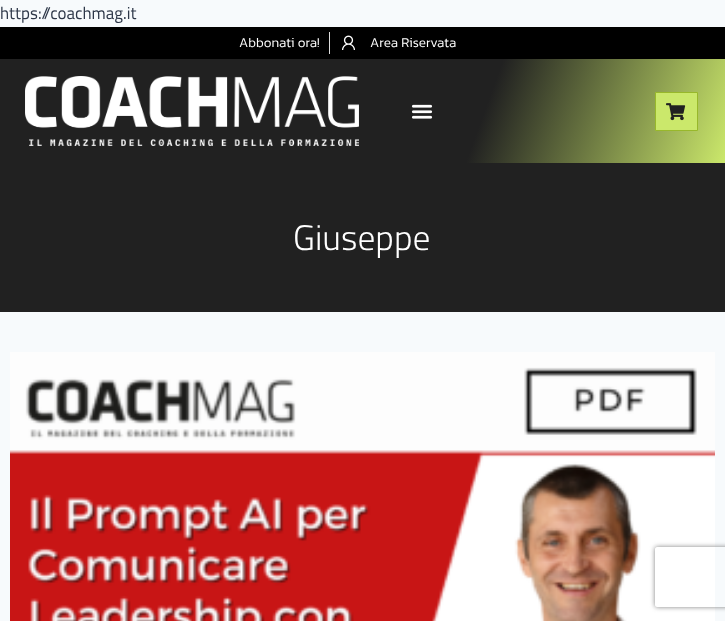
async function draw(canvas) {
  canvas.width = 725;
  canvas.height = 621;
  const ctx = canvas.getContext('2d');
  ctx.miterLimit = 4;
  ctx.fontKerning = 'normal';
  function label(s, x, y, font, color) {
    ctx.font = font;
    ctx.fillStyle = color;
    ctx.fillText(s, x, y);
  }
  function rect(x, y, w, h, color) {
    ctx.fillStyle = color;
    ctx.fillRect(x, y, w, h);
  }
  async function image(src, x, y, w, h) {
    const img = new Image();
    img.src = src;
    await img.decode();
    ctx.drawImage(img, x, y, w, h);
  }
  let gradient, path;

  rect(0, 0, 725, 621, '#f7fafc');
  label('https://coachmag.it', 0, 19, '17px Titillium Web', '#2d3748');
  rect(0, 27, 725, 32, '#000');
  label('Abbonati ora!', 239, 47, '300 13.5px Kanit', '#fff');
  rect(329, 32, 1, 22, '#ddd');
  await image('assets/img1.png', 342, 35, 13, 15);
  label('Area Riservata', 370, 47, '300 13.5px Kanit', '#fff');
  gradient = ctx.createLinearGradient(26, -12, 699, 234);
  gradient.addColorStop(0.66, '#212121');
  gradient.addColorStop(1, '#cbe86b');
  ctx.fillStyle = gradient;
  ctx.fillRect(0, 59, 725, 104);
  await image('assets/img2.png', 25, 76, 334, 70);
  await image('assets/img3.png', 411, 104, 22, 15);
  ctx.fillStyle = '#cbe86b';
  ctx.beginPath();
  ctx.rect(655.5, 92.5, 42, 38);
  ctx.fill();
  ctx.strokeStyle = '#98b82b';
  ctx.stroke();
  await image('assets/img4.png', 666, 103, 20, 18);
  rect(0, 163, 725, 149, '#212121');
  label('Giuseppe', 293, 250, '300 35.5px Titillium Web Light', '#fff');
  await image('assets/img5.png', 10, 352, 705, 269);
  ctx.save();
  path = new Path2D('M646 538H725V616H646ZM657 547H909C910 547 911 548 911 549V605C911 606 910 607 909 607H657C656 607 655 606 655 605V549C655 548 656 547 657 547Z');
  ctx.clip(path, 'evenodd');
  ctx.fillStyle = '#808080';
  ctx.filter = 'blur(2.5px)';
  ctx.beginPath();
  ctx.roundRect(655, 547, 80, 60, 2);
  ctx.fill();
  ctx.filter = 'none';
  ctx.restore();
}

draw(document.querySelector('canvas'));
